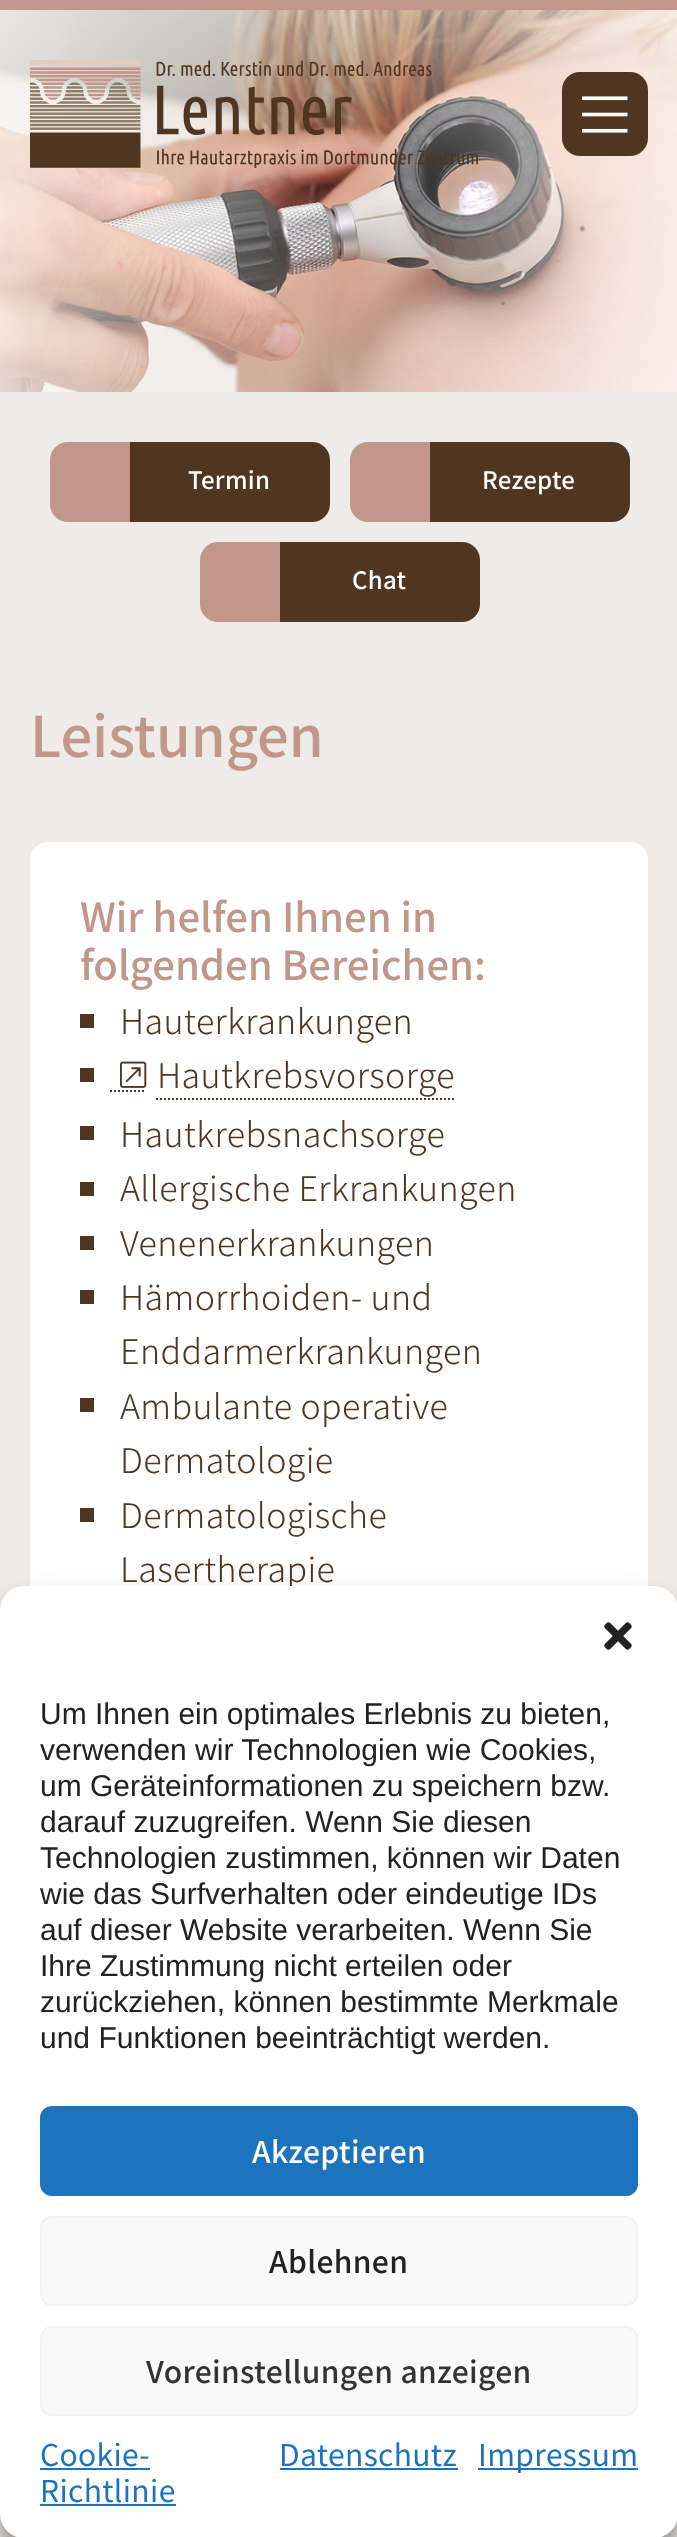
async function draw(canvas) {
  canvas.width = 677;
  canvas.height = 2537;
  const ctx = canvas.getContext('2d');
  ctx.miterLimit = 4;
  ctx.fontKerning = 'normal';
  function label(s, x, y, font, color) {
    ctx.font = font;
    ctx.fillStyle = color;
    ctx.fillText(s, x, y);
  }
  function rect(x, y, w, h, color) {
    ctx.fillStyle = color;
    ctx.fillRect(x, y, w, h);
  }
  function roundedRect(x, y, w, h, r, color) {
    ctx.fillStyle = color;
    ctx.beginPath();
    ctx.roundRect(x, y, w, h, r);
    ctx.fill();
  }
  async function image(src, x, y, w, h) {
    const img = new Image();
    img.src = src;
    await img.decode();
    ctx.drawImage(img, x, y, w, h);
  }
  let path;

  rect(0, 0, 677, 2537, '#eeebe9');
  await image('assets/img3.png', 0, 10, 677, 382);
  await image('assets/img1.png', 30, 60, 448, 108);
  roundedRect(562, 72, 86, 84, 18, '#503520');
  await image('assets/img2.png', 582, 96, 46, 37);
  rect(0, 0, 677, 10, '#c1978b');
  ctx.beginPath();
  ctx.roundRect(50, 442, 80, 80, [18, 0, 0, 18]);
  ctx.fill();
  ctx.fillStyle = '#503520';
  ctx.beginPath();
  ctx.roundRect(130, 442, 200, 80, [0, 18, 18, 0]);
  ctx.fill();
  ctx.letterSpacing = '0.25px';
  label('Termin', 188, 489, '500 24px Noto Sans TC', '#fff');
  ctx.fillStyle = '#c1978b';
  ctx.beginPath();
  ctx.roundRect(350, 442, 80, 80, [18, 0, 0, 18]);
  ctx.fill();
  ctx.fillStyle = '#503520';
  ctx.beginPath();
  ctx.roundRect(430, 442, 200, 80, [0, 18, 18, 0]);
  ctx.fill();
  label('Rezepte', 482, 489, '500 24px Noto Sans TC', '#fff');
  ctx.fillStyle = '#c1978b';
  ctx.beginPath();
  ctx.roundRect(200, 542, 80, 80, [18, 0, 0, 18]);
  ctx.fill();
  ctx.fillStyle = '#503520';
  ctx.beginPath();
  ctx.roundRect(280, 542, 200, 80, [0, 18, 18, 0]);
  ctx.fill();
  label('Chat', 352, 589, '500 24px Noto Sans TC', '#fff');
  ctx.letterSpacing = '0px';
  label('Leistungen', 30, 757, '500 56px Noto Sans TC', '#c1978b');
  roundedRect(30, 842, 618, 1020, 18, '#fff');
  label('Wir helfen Ihnen in', 80, 932, '500 40px Noto Sans TC', '#c1978b');
  label('folgenden Bereichen:', 80, 980, '500 40px Noto Sans TC', '#c1978b');
  rect(80, 1014, 14, 14, '#503520');
  ctx.letterSpacing = '0.4px';
  label('Hauterkrankungen', 120, 1034, '300 34px Noto Sans TC', '#503520');
  rect(80, 1068, 14, 14, '#503520');
  await image('assets/img4.png', 120, 1061, 27, 27);
  label('Hautkrebsvorsorge', 157, 1088, '300 34px Noto Sans TC', '#503520');
  path = new Path2D('M110 1091H146');
  ctx.strokeStyle = '#503520';
  ctx.lineWidth = 2;
  ctx.setLineDash([2, 2]);
  ctx.stroke(path);
  path = new Path2D('M156 1099H454');
  ctx.stroke(path);
  rect(80, 1126, 14, 14, '#503520');
  label('Hautkrebsnachsorge', 120, 1147, '300 34px Noto Sans TC', '#503520');
  rect(80, 1182, 14, 14, '#503520');
  label('Allergische Erkrankungen', 120, 1201, '300 34px Noto Sans TC', '#503520');
  rect(80, 1236, 14, 14, '#503520');
  label('Venenerkrankungen', 120, 1256, '300 34px Noto Sans TC', '#503520');
  rect(80, 1290, 14, 14, '#503520');
  label('Hämorrhoiden- und', 120, 1310, '300 34px Noto Sans TC', '#503520');
  label('Enddarmerkrankungen', 120, 1364, '300 34px Noto Sans TC', '#503520');
  rect(80, 1398, 14, 14, '#503520');
  label('Ambulante operative', 120, 1419, '300 34px Noto Sans TC', '#503520');
  label('Dermatologie', 120, 1473, '300 34px Noto Sans TC', '#503520');
  rect(80, 1508, 14, 14, '#503520');
  label('Dermatologische', 120, 1528, '300 34px Noto Sans TC', '#503520');
  label('Lasertherapie', 120, 1582, '300 34px Noto Sans TC', '#503520');
  ctx.fillStyle = '#0000003b';
  ctx.filter = 'blur(6px)';
  ctx.beginPath();
  ctx.roundRect(0, 1598, 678, 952, 24);
  ctx.fill();
  ctx.filter = 'none';
  ctx.fillStyle = '#00000030';
  ctx.filter = 'blur(20px)';
  ctx.beginPath();
  ctx.roundRect(0, 1606, 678, 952, 24);
  ctx.fill();
  ctx.filter = 'none';
  roundedRect(0, 1586, 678, 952, 24, '#fff');
  await image('assets/img5.png', 604, 1622, 28, 28);
  ctx.letterSpacing = '0px';
  label('Um Ihnen ein optimales Erlebnis zu bieten,', 40, 1724, '30px Liberation Sans', '#222');
  label('verwenden wir Technologien wie Cookies,', 40, 1760, '30px Liberation Sans', '#222');
  label('um Geräteinformationen zu speichern bzw.', 40, 1796, '30px Liberation Sans', '#222');
  label('darauf zuzugreifen. Wenn Sie diesen', 40, 1832, '30px Liberation Sans', '#222');
  label('Technologien zustimmen, können wir Daten', 40, 1868, '30px Liberation Sans', '#222');
  label('wie das Surfverhalten oder eindeutige IDs', 40, 1904, '30px Liberation Sans', '#222');
  label('auf dieser Website verarbeiten. Wenn Sie', 40, 1940, '30px Liberation Sans', '#222');
  label('Ihre Zustimmung nicht erteilen oder', 40, 1976, '30px Liberation Sans', '#222');
  label('zurückziehen, können bestimmte Merkmale', 40, 2012, '30px Liberation Sans', '#222');
  label('und Funktionen beeinträchtigt werden.', 40, 2048, '30px Liberation Sans', '#222');
  ctx.fillStyle = '#1e73be';
  ctx.beginPath();
  ctx.roundRect(41, 2107, 596, 88, 11);
  ctx.fill();
  ctx.strokeStyle = '#1e73be';
  ctx.setLineDash([]);
  ctx.stroke();
  ctx.letterSpacing = '0.35px';
  label('Akzeptieren', 252, 2163, '500 30px Noto Sans TC', '#fff');
  ctx.fillStyle = '#f9f9f9';
  ctx.beginPath();
  ctx.roundRect(41, 2217, 596, 88, 11);
  ctx.fill();
  ctx.strokeStyle = '#f2f2f2';
  ctx.stroke();
  label('Ablehnen', 269, 2273, '500 30px Noto Sans TC', '#222');
  ctx.fillStyle = '#f9f9f9';
  ctx.beginPath();
  ctx.roundRect(41, 2327, 596, 88, 11);
  ctx.fill();
  ctx.stroke();
  label('Voreinstellungen anzeigen', 146, 2383, '500 30px Noto Sans TC', '#333');
  label('Cookie-', 40, 2466, '30px Noto Sans TC', '#1e73be');
  rect(40, 2468, 110, 2, '#1e73be');
  label('Richtlinie', 40, 2502, '30px Noto Sans TC', '#1e73be');
  rect(40, 2504, 136, 2, '#1e73be');
  label('Datenschutz', 279, 2466, '30px Noto Sans TC', '#1e73be');
  rect(280, 2468, 178, 2, '#1e73be');
  rect(478, 2468, 160, 2, '#1e73be');
  label('Impressum', 478, 2466, '30px Noto Sans TC', '#1e73be');
}

draw(document.querySelector('canvas'));
